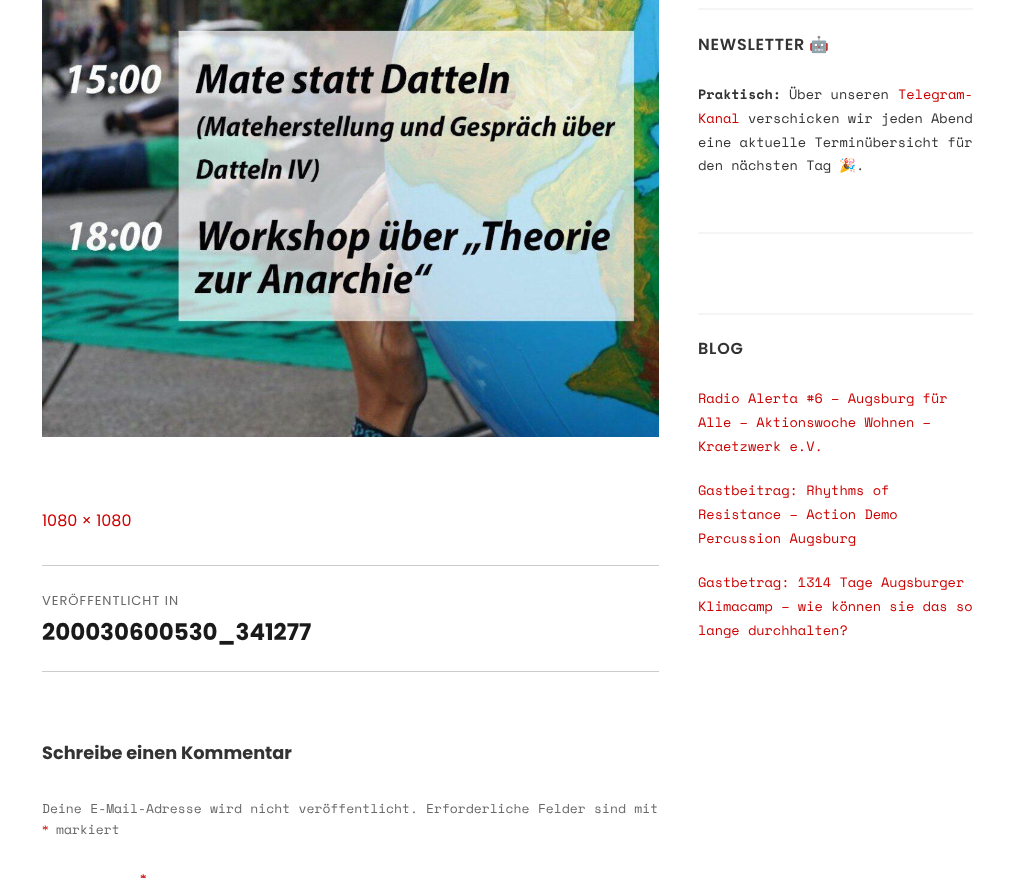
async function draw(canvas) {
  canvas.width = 1024;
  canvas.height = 878;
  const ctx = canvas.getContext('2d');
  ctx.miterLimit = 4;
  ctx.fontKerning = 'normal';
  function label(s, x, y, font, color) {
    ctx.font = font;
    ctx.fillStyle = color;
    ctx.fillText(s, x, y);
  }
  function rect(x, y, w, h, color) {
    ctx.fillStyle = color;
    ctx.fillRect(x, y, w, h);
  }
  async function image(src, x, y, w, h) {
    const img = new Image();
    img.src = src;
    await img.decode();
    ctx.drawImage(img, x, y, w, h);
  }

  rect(0, 0, 1024, 878, '#fff');
  rect(698, 8, 275, 2, '#f5f5f5');
  ctx.letterSpacing = '0.75px';
  label('NEWSLETTER', 698, 50, '600 16px Poppins', '#333');
  label('🤖', 809, 50, 'bold 16px Noto Color Emoji', '#333');
  ctx.letterSpacing = '0px';
  label('Praktisch:', 698, 99, 'bold 13.6px Space Mono', '#333');
  label('Über unseren', 789, 99, '13.6px Space Mono', '#333');
  label('Telegram-', 898, 99, '13.6px Space Mono', '#c00');
  label('Kanal', 698, 123, '13.6px Space Mono', '#c00');
  label('verschicken wir jeden Abend', 748, 123, '13.6px Space Mono', '#333');
  label('eine aktuelle Terminübersicht für', 698, 147, '13.6px Space Mono', '#333');
  label('den nächsten Tag', 698, 170, '13.6px Space Mono', '#333');
  label('🎉', 839, 170, 'bold 13.6px Noto Color Emoji', '#333');
  label('.', 856, 170, '13.6px Space Mono', '#333');
  rect(698, 232, 275, 2, '#f5f5f5');
  rect(698, 313, 275, 2, '#f5f5f5');
  ctx.letterSpacing = '0.75px';
  label('BLOG', 698, 354, '600 16px Poppins', '#333');
  ctx.letterSpacing = '0px';
  label('Radio Alerta #6 – Augsburg für', 698, 403, '13.6px Space Mono', '#c00');
  label('Alle – Aktionswoche Wohnen –', 698, 427, '13.6px Space Mono', '#c00');
  label('Kraetzwerk e.V.', 698, 451, '13.6px Space Mono', '#c00');
  label('Gastbeitrag: Rhythms of', 698, 495, '13.6px Space Mono', '#c00');
  label('Resistance – Action Demo', 698, 519, '13.6px Space Mono', '#c00');
  label('Percussion Augsburg', 698, 543, '13.6px Space Mono', '#c00');
  label('Gastbetrag: 1314 Tage Augsburger', 698, 587, '13.6px Space Mono', '#c00');
  label('Klimacamp – wie können sie das so', 698, 611, '13.6px Space Mono', '#c00');
  label('lange durchhalten?', 698, 635, '13.6px Space Mono', '#c00');
  await image('assets/img1.png', 42, 0, 617, 437);
  label('1080 × 1080', 42, 526, '16px Poppins', '#c00');
  rect(42, 565, 617, 1, '#ccc');
  rect(42, 671, 617, 1, '#ccc');
  ctx.letterSpacing = '1px';
  label('VERÖFFENTLICHT IN', 42, 605, '13px Poppins', '#686868');
  ctx.letterSpacing = '0px';
  label('200030600530_341277', 42, 640, 'bold 23px Poppins', '#1a1a1a');
  label('Schreibe einen Kommentar', 42, 759, 'bold 17.75px Poppins', '#333');
  ctx.wordSpacing = '0.5px';
  label('Deine E-Mail-Adresse wird nicht veröffentlicht.', 42, 813, '13px Space Mono', '#686868');
  label('Erforderliche Felder sind mit', 426, 813, '13px Space Mono', '#686868');
  ctx.wordSpacing = '0px';
  label('*', 42, 834, '13px Liberation Serif', '#c00');
  label('markiert', 56, 834, '13px Space Mono', '#686868');
  ctx.letterSpacing = '1px';
  label('*', 140, 883, 'bold 13px Liberation Serif', '#c00');
}

draw(document.querySelector('canvas'));
